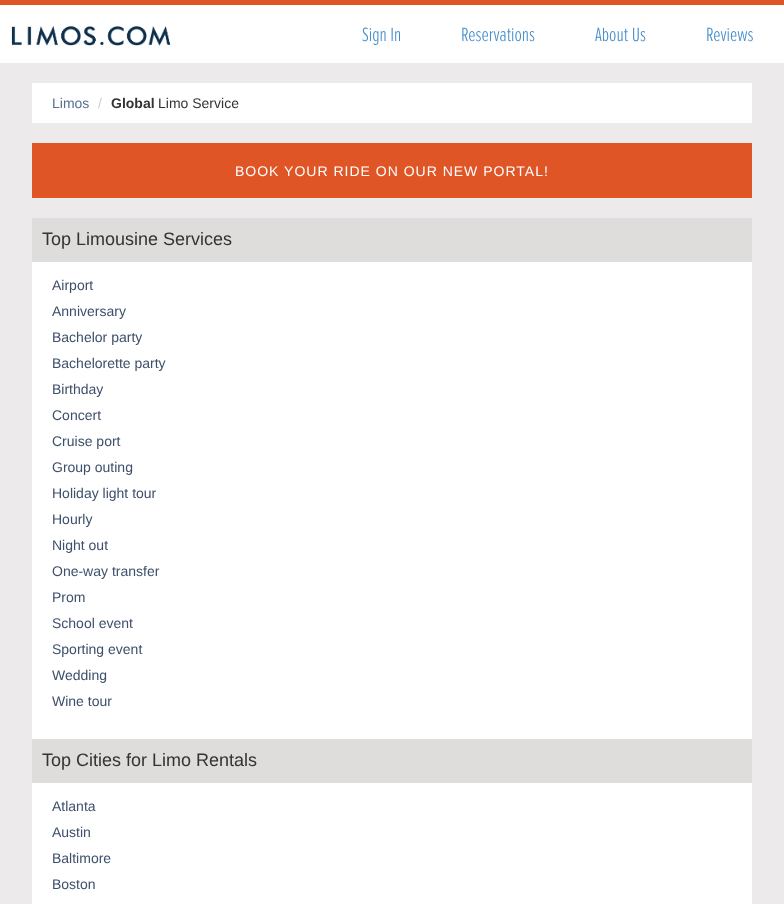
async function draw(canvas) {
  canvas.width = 784;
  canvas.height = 904;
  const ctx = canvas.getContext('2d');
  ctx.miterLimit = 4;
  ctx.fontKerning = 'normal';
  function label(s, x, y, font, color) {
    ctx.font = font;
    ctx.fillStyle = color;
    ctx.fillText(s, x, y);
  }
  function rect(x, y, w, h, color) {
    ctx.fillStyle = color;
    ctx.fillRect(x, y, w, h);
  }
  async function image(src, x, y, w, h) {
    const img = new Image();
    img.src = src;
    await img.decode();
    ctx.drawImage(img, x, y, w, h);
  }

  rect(0, 0, 784, 904, '#eceaea');
  rect(0, 0, 784, 5, '#df5526');
  rect(0, 5, 784, 58, '#fff');
  await image('assets/img1.png', 11, 26, 160, 20);
  label('Sign In', 362, 41, '300 20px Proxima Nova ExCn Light', '#428bca');
  label('Reservations', 461, 41, '300 20px Proxima Nova ExCn Light', '#428bca');
  label('About Us', 595, 41, '300 20px Proxima Nova ExCn Light', '#428bca');
  label('Reviews', 706, 41, '300 20px Proxima Nova ExCn Light', '#428bca');
  rect(32, 83, 720, 40, '#fff');
  label('Limos', 52, 108, '14px Liberation Sans', '#596f8f');
  label('/', 98, 108, '14px Liberation Sans', '#ccc');
  label('Global', 111, 108, 'bold 14px Liberation Sans', '#333');
  label('Limo Service', 158, 108, '14px Liberation Sans', '#333');
  rect(32, 143, 720, 55, '#df5526');
  ctx.letterSpacing = '1px';
  label('BOOK YOUR RIDE ON OUR NEW PORTAL!', 235, 176, '14px Liberation Sans', '#fff');
  rect(32, 262, 720, 642, '#fff');
  rect(32, 218, 720, 44, '#dedddc');
  ctx.letterSpacing = '0px';
  label('Top Limousine Services', 42, 245, '18px Liberation Sans', '#333');
  label('Airport', 52, 290, '14px Liberation Sans', '#3d4f6a');
  label('Anniversary', 52, 316, '14px Liberation Sans', '#3d4f6a');
  label('Bachelor party', 52, 342, '14px Liberation Sans', '#3d4f6a');
  label('Bachelorette party', 52, 368, '14px Liberation Sans', '#3d4f6a');
  label('Birthday', 52, 394, '14px Liberation Sans', '#3d4f6a');
  label('Concert', 52, 420, '14px Liberation Sans', '#3d4f6a');
  label('Cruise port', 52, 446, '14px Liberation Sans', '#3d4f6a');
  label('Group outing', 52, 472, '14px Liberation Sans', '#3d4f6a');
  label('Holiday light tour', 52, 498, '14px Liberation Sans', '#3d4f6a');
  label('Hourly', 52, 524, '14px Liberation Sans', '#3d4f6a');
  label('Night out', 52, 550, '14px Liberation Sans', '#3d4f6a');
  label('One-way transfer', 52, 576, '14px Liberation Sans', '#3d4f6a');
  label('Prom', 52, 602, '14px Liberation Sans', '#3d4f6a');
  label('School event', 52, 628, '14px Liberation Sans', '#3d4f6a');
  label('Sporting event', 52, 654, '14px Liberation Sans', '#3d4f6a');
  label('Wedding', 52, 680, '14px Liberation Sans', '#3d4f6a');
  label('Wine tour', 52, 706, '14px Liberation Sans', '#3d4f6a');
  rect(32, 739, 720, 44, '#dedddc');
  label('Top Cities for Limo Rentals', 42, 766, '18px Liberation Sans', '#333');
  label('Atlanta', 52, 811, '14px Liberation Sans', '#3d4f6a');
  label('Austin', 52, 837, '14px Liberation Sans', '#3d4f6a');
  label('Baltimore', 52, 863, '14px Liberation Sans', '#3d4f6a');
  label('Boston', 52, 889, '14px Liberation Sans', '#3d4f6a');
}

draw(document.querySelector('canvas'));
